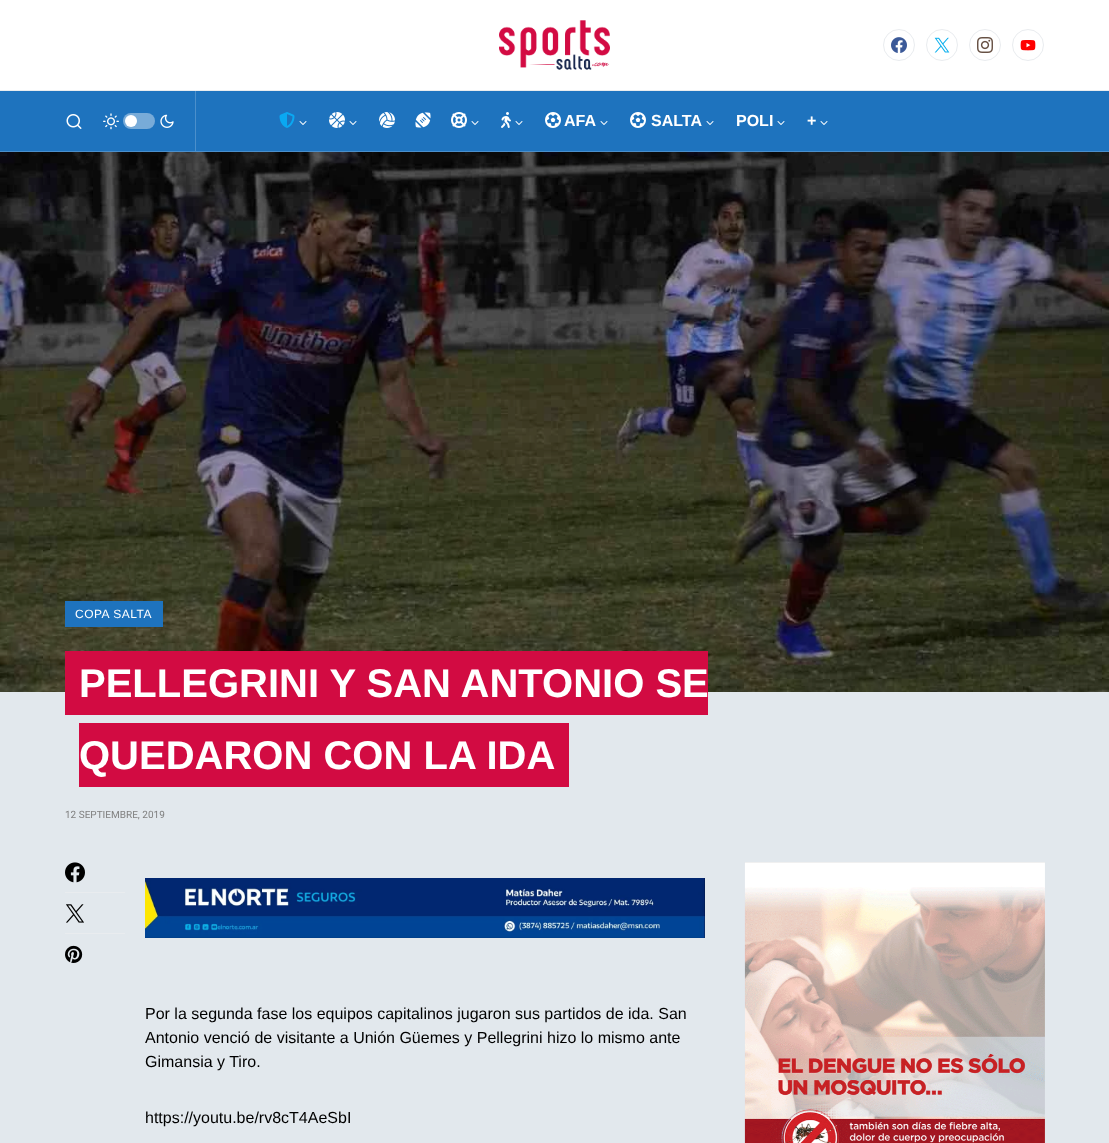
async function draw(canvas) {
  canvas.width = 1109;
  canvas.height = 1143;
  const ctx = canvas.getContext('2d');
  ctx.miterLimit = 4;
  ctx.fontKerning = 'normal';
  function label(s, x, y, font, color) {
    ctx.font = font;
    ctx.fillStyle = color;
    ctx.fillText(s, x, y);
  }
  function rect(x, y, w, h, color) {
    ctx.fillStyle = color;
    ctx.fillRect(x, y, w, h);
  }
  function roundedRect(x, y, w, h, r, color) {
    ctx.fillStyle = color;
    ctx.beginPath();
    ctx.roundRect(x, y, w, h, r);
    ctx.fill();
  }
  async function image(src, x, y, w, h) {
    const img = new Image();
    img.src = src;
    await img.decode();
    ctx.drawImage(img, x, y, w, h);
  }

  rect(0, 0, 1109, 1143, '#e2e8ed');
  rect(0, 0, 1109, 90, '#fff');
  rect(0, 90, 1109, 1, '#e9ecef');
  await image('assets/img1.png', 499, 20, 111, 50);
  ctx.beginPath();
  ctx.arc(899, 45, 15.5, 0, 2 * Math.PI);
  ctx.strokeStyle = '#e9ecef';
  ctx.stroke();
  await image('assets/img2.png', 891, 37, 16, 16);
  ctx.beginPath();
  ctx.arc(942, 45, 15.5, 0, 2 * Math.PI);
  ctx.stroke();
  await image('assets/img3.png', 934, 37, 16, 16);
  ctx.beginPath();
  ctx.arc(985, 45, 15.5, 0, 2 * Math.PI);
  ctx.stroke();
  await image('assets/img4.png', 977, 37, 16, 16);
  ctx.beginPath();
  ctx.arc(1028, 45, 15.5, 0, 2 * Math.PI);
  ctx.stroke();
  await image('assets/img5.png', 1020, 40, 16, 11);
  rect(0, 91, 1109, 60, '#1e73be');
  rect(0, 151, 1109, 1, '#4b8fcb');
  await image('assets/img6.png', 66, 114, 16, 15);
  await image('assets/img7.png', 103, 113, 16, 17);
  roundedRect(123, 113, 32, 16, 8, '#78abd8');
  ctx.fillStyle = '#fff';
  ctx.beginPath();
  ctx.arc(131, 121, 6, 0, 2 * Math.PI);
  ctx.fill();
  await image('assets/img8.png', 160, 114, 14, 14);
  rect(195, 91, 1, 60, '#4b8fcb');
  await image('assets/img9.png', 279, 112, 16, 16);
  await image('assets/img10.png', 299, 121, 8, 4);
  await image('assets/img11.png', 329, 112, 16, 16);
  await image('assets/img10.png', 349, 121, 8, 4);
  await image('assets/img12.png', 379, 112, 16, 16);
  await image('assets/img13.png', 415, 112, 16, 16);
  await image('assets/img14.png', 451, 112, 16, 16);
  await image('assets/img10.png', 471, 121, 8, 4);
  await image('assets/img15.png', 501, 112, 10, 16);
  await image('assets/img10.png', 515, 121, 8, 4);
  await image('assets/img16.png', 545, 112, 16, 16);
  label('AFA', 564, 126, 'bold 16px Liberation Sans', '#fff');
  await image('assets/img10.png', 600, 121, 8, 4);
  await image('assets/img16.png', 630, 112, 16, 16);
  label('SALTA', 651, 126, 'bold 16px Liberation Sans', '#fff');
  await image('assets/img10.png', 706, 121, 8, 4);
  label('POLI', 736, 126, 'bold 16px Liberation Sans', '#fff');
  await image('assets/img10.png', 777, 121, 8, 4);
  label('+', 807, 126, 'bold 16px Liberation Sans', '#fff');
  await image('assets/img10.png', 820, 121, 8, 4);
  await image('assets/img17.png', 0, 152, 1109, 540);
  rect(65, 601, 98, 26, '#1e73be');
  ctx.letterSpacing = '0.5px';
  label('COPA SALTA', 75, 618, '12px Liberation Sans', '#fff');
  rect(65, 651, 643, 64, '#d20b42');
  ctx.letterSpacing = '0px';
  label('PELLEGRINI Y SAN ANTONIO SE', 79, 697, 'bold 40px Liberation Sans', '#fff');
  rect(79, 723, 490, 64, '#d20b42');
  label('QUEDARON CON LA IDA', 79, 769, 'bold 40px Liberation Sans', '#fff');
  label('12 SEPTIEMBRE, 2019', 65, 818, '10px Roboto', '#818181');
  await image('assets/img18.png', 65, 862, 20, 21);
  rect(65, 892, 60, 1, '#e9ecef');
  await image('assets/img19.png', 66, 904, 18, 19);
  rect(65, 933, 60, 1, '#e9ecef');
  await image('assets/img20.png', 65, 945, 18, 18);
  await image('assets/img21.png', 145, 878, 560, 60);
  label('Por la segunda fase los equipos capitalinos jugaron sus partidos de ida. San', 145, 1019, '16px Liberation Sans', '#000');
  label('Antonio venció de visitante a Unión Güemes y Pellegrini hizo lo mismo ante', 145, 1043, '16px Liberation Sans', '#000');
  label('Gimansia y Tiro.', 145, 1067, '16px Liberation Sans', '#000');
  label('https://youtu.be/rv8cT4AeSbI', 145, 1123, '16px Liberation Sans', '#000');
  await image('assets/img22.png', 744, 862, 301, 281);
}

draw(document.querySelector('canvas'));
